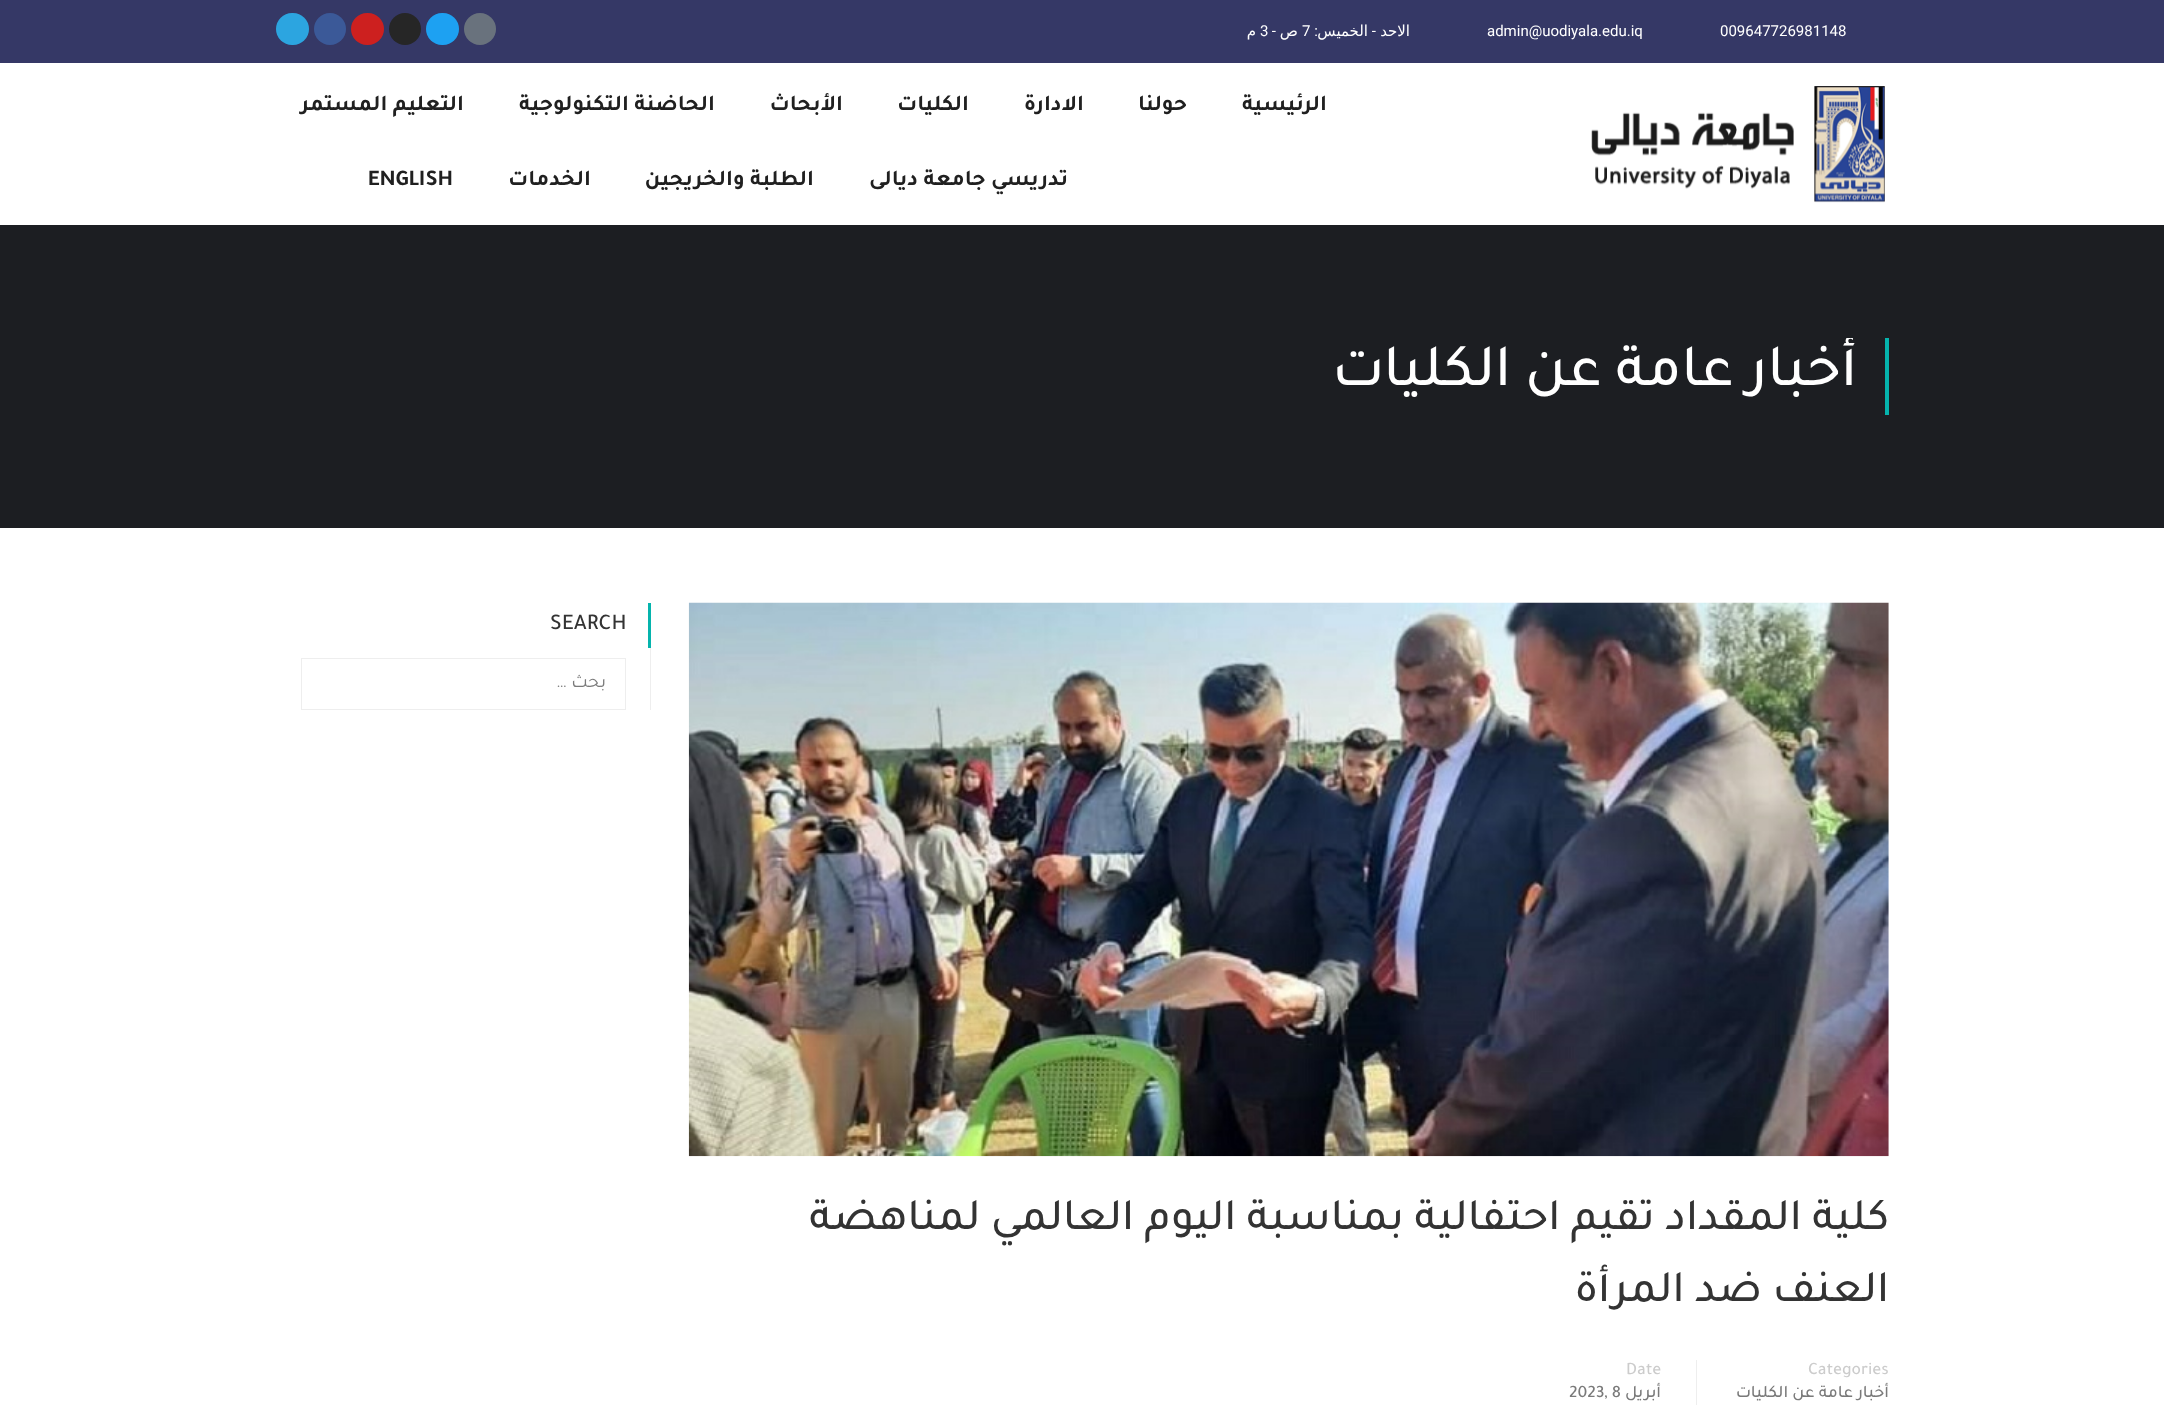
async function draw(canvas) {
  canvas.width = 2164;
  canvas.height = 1419;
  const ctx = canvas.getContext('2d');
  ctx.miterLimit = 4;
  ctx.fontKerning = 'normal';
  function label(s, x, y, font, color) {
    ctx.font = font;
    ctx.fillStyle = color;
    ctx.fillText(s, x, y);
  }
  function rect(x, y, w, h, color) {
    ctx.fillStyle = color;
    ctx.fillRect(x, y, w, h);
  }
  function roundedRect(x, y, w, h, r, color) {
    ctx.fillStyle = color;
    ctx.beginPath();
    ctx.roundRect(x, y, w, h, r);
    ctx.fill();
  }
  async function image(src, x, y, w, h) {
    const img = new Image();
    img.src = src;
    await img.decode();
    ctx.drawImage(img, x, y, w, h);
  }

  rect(0, 0, 2164, 1419, '#fff');
  rect(0, 0, 2164, 63, '#353866');
  label('009647726981148', 1720, 36, '15px Roboto', '#fff');
  label('admin@uodiyala.edu.iq', 1487, 36, '15px Roboto', '#fff');
  ctx.direction = 'rtl';
  label('الاحد', 1410, 36, '15px DejaVu Sans', '#fff');
  label('-', 1376, 36, '15px Roboto', '#fff');
  label('الخميس', 1368, 36, '15px DejaVu Sans', '#fff');
  label(':', 1318, 36, '15px Roboto', '#fff');
  ctx.direction = 'ltr';
  label('7', 1302, 36, '15px Roboto', '#fff');
  ctx.direction = 'rtl';
  label('ص', 1298, 36, '15px DejaVu Sans', '#fff');
  label('-', 1276, 36, '15px Roboto', '#fff');
  ctx.direction = 'ltr';
  label('3', 1260, 36, '15px Roboto', '#fff');
  ctx.direction = 'rtl';
  label('م', 1256, 36, '15px DejaVu Sans', '#fff');
  ctx.fillStyle = '#69727d';
  ctx.beginPath();
  ctx.arc(480, 29, 16, 0, 2 * Math.PI);
  ctx.fill();
  roundedRect(426, 13, 33, 32, 16, '#1da1f2');
  ctx.fillStyle = '#262626';
  ctx.beginPath();
  ctx.arc(405, 29, 16, 0, 2 * Math.PI);
  ctx.fill();
  roundedRect(351, 13, 33, 32, 16, '#cd201f');
  ctx.fillStyle = '#3b5998';
  ctx.beginPath();
  ctx.arc(330, 29, 16, 0, 2 * Math.PI);
  ctx.fill();
  roundedRect(276, 13, 33, 32, 16, '#2ca5e0');
  await image('assets/img1.png', 1591, 86, 294, 117);
  label('الرئيسية', 1327, 110, 'bold 22.5px Tajawal', '#202020');
  label('حولنا', 1187, 110, 'bold 22.5px Tajawal', '#202020');
  label('الادارة', 1084, 110, 'bold 22.5px Tajawal', '#202020');
  label('الكليات', 969, 110, 'bold 22.5px Tajawal', '#202020');
  label('الأبحاث', 843, 110, 'bold 22.5px Tajawal', '#202020');
  label('الحاضنة التكنولوجية', 715, 110, 'bold 22.5px Tajawal', '#202020');
  label('التعليم المستمر', 464, 110, 'bold 22.5px Tajawal', '#202020');
  label('تدريسي جامعة ديالى', 1068, 185, 'bold 22.5px Tajawal', '#202020');
  label('الطلبة والخريجين', 814, 185, 'bold 22.5px Tajawal', '#202020');
  label('الخدمات', 591, 185, 'bold 22.5px Tajawal', '#202020');
  ctx.direction = 'ltr';
  label('ENGLISH', 368, 185, 'bold 22.5px Tajawal', '#202020');
  rect(0, 225, 2164, 303, '#1c1e22');
  rect(1885, 338, 4, 77, '#05b4ad');
  ctx.save();
  ctx.beginPath();
  ctx.rect(258, 338, 1650, 77);
  ctx.clip();
  ctx.direction = 'rtl';
  label('أخبار عامة عن الكليات', 1857, 385, '500 60px Tajawal', '#fff');
  ctx.restore();
  rect(648, 603, 3, 45, '#05b4ad');
  label('SEARCH', 550, 629, '500 22.5px Tajawal', '#333');
  rect(650, 648, 1, 62, '#eee');
  ctx.strokeStyle = '#eee';
  ctx.strokeRect(301.5, 658.5, 324, 51);
  ctx.direction = 'rtl';
  label('بحث …', 606, 687, '19px Tajawal', '#7a7a7a');
  await image('assets/img2.png', 688, 602, 1201, 555);
  label('كلية المقداد تقيم احتفالية بمناسبة اليوم العالمي لمناهضة', 1889, 1229, '500 45px Tajawal', '#333');
  label('العنف ضد المرأة', 1889, 1301, '500 45px Tajawal', '#333');
  rect(1696, 1360, 1, 45, '#eee');
  ctx.direction = 'ltr';
  label('Categories', 1808, 1374, '500 17.5px Tajawal', '#ccc');
  ctx.direction = 'rtl';
  label('أخبار عامة عن الكليات', 1889, 1397, '500 17.5px Tajawal', '#7a7a7a');
  ctx.direction = 'ltr';
  label('Date', 1626, 1374, '500 17.5px Tajawal', '#ccc');
  ctx.direction = 'rtl';
  label('أبريل', 1661, 1397, '500 17.5px Tajawal', '#7a7a7a');
  ctx.direction = 'ltr';
  label('2023, 8', 1569, 1397, '500 17.5px Tajawal', '#7a7a7a');
}

draw(document.querySelector('canvas'));
